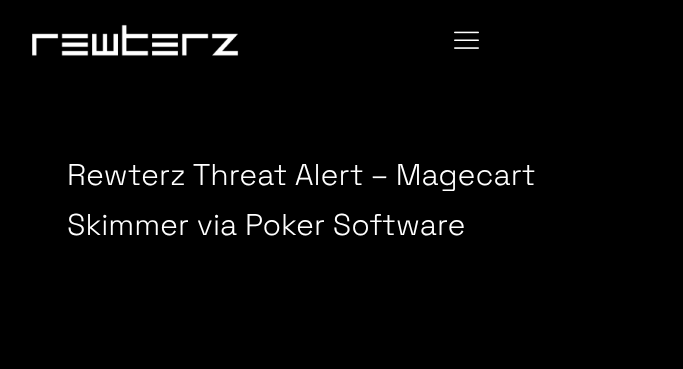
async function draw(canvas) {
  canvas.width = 683;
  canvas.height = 369;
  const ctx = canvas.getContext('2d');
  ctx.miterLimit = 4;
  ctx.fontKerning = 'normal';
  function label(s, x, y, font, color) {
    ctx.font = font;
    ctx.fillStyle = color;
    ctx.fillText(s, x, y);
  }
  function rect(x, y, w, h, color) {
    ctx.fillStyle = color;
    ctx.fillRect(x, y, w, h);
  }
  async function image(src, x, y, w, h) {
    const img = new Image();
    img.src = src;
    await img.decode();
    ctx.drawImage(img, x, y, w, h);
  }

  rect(0, 0, 683, 369, '#000');
  await image('assets/img1.png', 32, 24, 207, 32);
  await image('assets/img2.png', 454, 31, 25, 18);
  label('Rewterz Threat Alert – Magecart', 67, 185, '300 30px Space Grotesk', '#fff');
  label('Skimmer via Poker Software', 67, 235, '300 30px Space Grotesk', '#fff');
}

draw(document.querySelector('canvas'));
